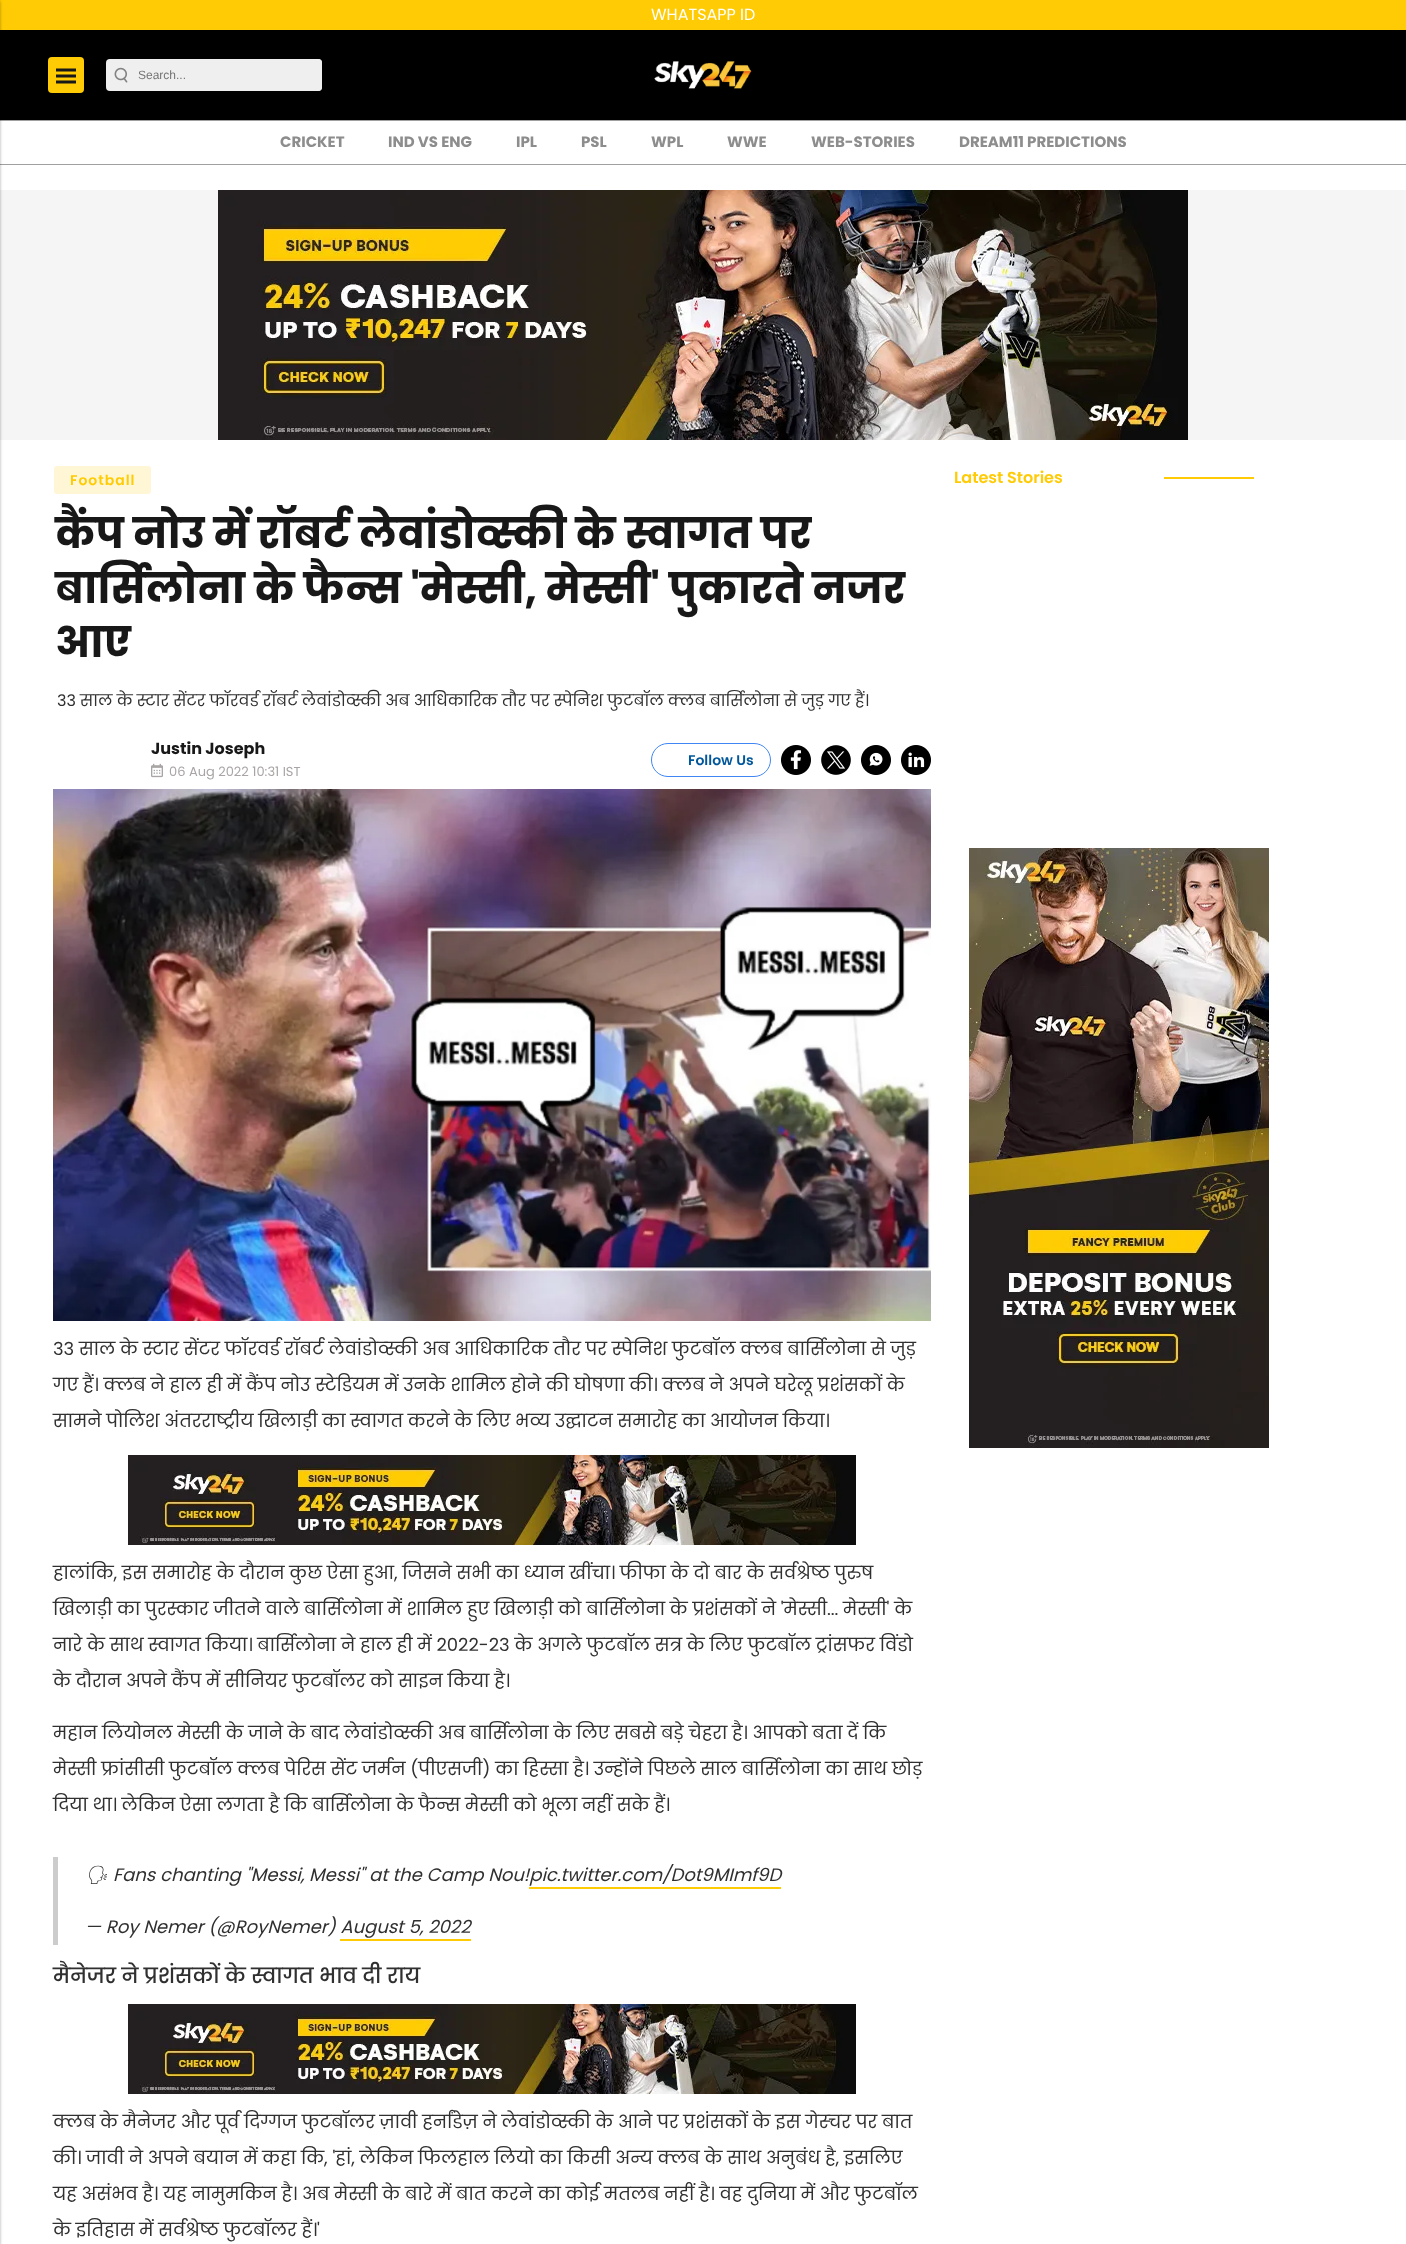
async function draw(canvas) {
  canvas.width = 1406;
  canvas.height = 2244;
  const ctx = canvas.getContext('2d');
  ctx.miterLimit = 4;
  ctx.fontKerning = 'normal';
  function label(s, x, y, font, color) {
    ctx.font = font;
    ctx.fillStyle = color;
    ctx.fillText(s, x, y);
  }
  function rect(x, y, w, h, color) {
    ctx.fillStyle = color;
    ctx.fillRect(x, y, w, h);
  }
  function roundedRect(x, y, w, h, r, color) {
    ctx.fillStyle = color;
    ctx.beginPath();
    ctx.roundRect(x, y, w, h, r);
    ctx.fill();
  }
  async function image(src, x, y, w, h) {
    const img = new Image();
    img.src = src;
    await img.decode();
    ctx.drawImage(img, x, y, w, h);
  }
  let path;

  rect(0, 0, 1406, 2244, '#fff');
  rect(0, 0, 1406, 30, '#ffcb05');
  label('WHATSAPP ID', 651, 20, '16px Poppins', '#fff');
  rect(0, 30, 1406, 90, '#000');
  rect(0, 120, 1406, 1, '#a0a0a0');
  rect(0, 164, 1406, 1, '#a0a0a0');
  rect(0, 190, 1406, 250, '#f5f5f5');
  ctx.fillStyle = '#00000038';
  ctx.filter = 'blur(1.5px)';
  ctx.beginPath();
  ctx.rect(-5, 2, 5, 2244);
  ctx.fill();
  ctx.filter = 'none';
  ctx.fillStyle = '#0000001f';
  ctx.filter = 'blur(1.5px)';
  ctx.beginPath();
  ctx.rect(-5, 0, 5, 2244);
  ctx.fill();
  ctx.filter = 'none';
  roundedRect(48, 57, 36, 36, 4, '#ffcb05');
  path = new Path2D('M56 82H76M56 76H76M56 70H76');
  ctx.strokeStyle = '#181818';
  ctx.lineWidth = 3;
  ctx.stroke(path);
  roundedRect(106, 59, 216, 32, 4, '#efefef');
  await image('assets/img1.png', 114, 67, 14, 16);
  roundedRect(136, 59, 186, 32, 4, '#efefef');
  label('Search...', 138, 79, '12px Liberation Sans', '#757575');
  await image('assets/img2.png', 654, 61, 98, 28);
  label('CRICKET', 280, 147, 'bold 15px Poppins', '#8d8d8d');
  label('IND VS ENG', 388, 147, 'bold 15px Poppins', '#8d8d8d');
  label('IPL', 516, 147, 'bold 15px Poppins', '#8d8d8d');
  label('PSL', 581, 147, 'bold 15px Poppins', '#8d8d8d');
  label('WPL', 651, 147, 'bold 15px Poppins', '#8d8d8d');
  label('WWE', 727, 147, 'bold 15px Poppins', '#8d8d8d');
  label('WEB-STORIES', 811, 147, 'bold 15px Poppins', '#8d8d8d');
  label('DREAM11 PREDICTIONS', 959, 147, 'bold 15px Poppins', '#8d8d8d');
  await image('assets/img3.png', 218, 190, 970, 250);
  ctx.fillStyle = '#fff6d5';
  ctx.beginPath();
  ctx.roundRect(53.5, 465.5, 98, 29, 3.5);
  ctx.fill();
  ctx.strokeStyle = '#fff';
  ctx.lineWidth = 1;
  ctx.stroke();
  ctx.letterSpacing = '1px';
  label('Football', 70, 485, '600 14px Poppins', '#ffcb05');
  ctx.letterSpacing = '0px';
  label('कैंप नोउ में रॉबर्ट लेवांडोव्स्की के स्वागत पर', 55, 548, 'bold 42px Poppins', '#181818');
  label('बार्सिलोना के फैन्स \'मेस्सी, मेस्सी\' पुकारते नजर', 55, 603, 'bold 42px Poppins', '#181818');
  label('आए', 55, 657, 'bold 42px Poppins', '#181818');
  label('33 साल के स्टार सेंटर फॉरवर्ड रॉबर्ट लेवांडोव्स्की अब आधिकारिक तौर पर स्पेनिश फुटबॉल क्लब बार्सिलोना से जुड़ गए हैं।', 57, 706, '16px Poppins', '#303030');
  label('Justin Joseph', 151, 754, 'bold 16px Poppins', '#181818');
  await image('assets/img4.png', 151, 763, 12, 15);
  label('06 Aug 2022 10:31 IST', 169, 776, '13px Poppins', '#a9a5a5');
  ctx.beginPath();
  ctx.roundRect(651.5, 743.5, 119, 33, 16.5);
  ctx.strokeStyle = '#4086f4';
  ctx.stroke();
  label('Follow Us', 688, 765, '600 14px Poppins', '#01579b');
  await image('assets/img5.png', 781, 745, 30, 30);
  await image('assets/img6.png', 821, 745, 30, 30);
  await image('assets/img7.png', 861, 745, 30, 30);
  await image('assets/img8.png', 901, 745, 30, 30);
  await image('assets/img9.png', 53, 789, 878, 532);
  label('33 साल के स्टार सेंटर फॉरवर्ड रॉबर्ट लेवांडोव्स्की अब आधिकारिक तौर पर स्पेनिश फुटबॉल क्लब बार्सिलोना से जुड़', 53, 1355, '18px Poppins', '#303030');
  label('गए हैं। क्लब ने हाल ही में कैंप नोउ स्टेडियम में उनके शामिल होने की घोषणा की। क्लब ने अपने घरेलू प्रशंसकों के', 53, 1391, '18px Poppins', '#303030');
  label('सामने पोलिश अंतरराष्ट्रीय खिलाड़ी का स्वागत करने के लिए भव्य उद्घाटन समारोह का आयोजन किया।', 53, 1427, '18px Poppins', '#303030');
  await image('assets/img10.png', 128, 1455, 728, 90);
  label('हालांकि, इस समारोह के दौरान कुछ ऐसा हुआ, जिसने सभी का ध्यान खींचा। फीफा के दो बार के सर्वश्रेष्ठ पुरुष', 53, 1579, '18px Poppins', '#303030');
  label('खिलाड़ी का पुरस्कार जीतने वाले बार्सिलोना में शामिल हुए खिलाड़ी को बार्सिलोना के प्रशंसकों ने \'मेस्सी... मेस्सी\' के', 53, 1615, '18px Poppins', '#303030');
  label('नारे के साथ स्वागत किया। बार्सिलोना ने हाल ही में 2022-23 के अगले फुटबॉल सत्र के लिए फुटबॉल ट्रांसफर विंडो', 53, 1651, '18px Poppins', '#303030');
  label('के दौरान अपने कैंप में सीनियर फुटबॉलर को साइन किया है।', 53, 1687, '18px Poppins', '#303030');
  label('महान लियोनल मेस्सी के जाने के बाद लेवांडोव्स्की अब बार्सिलोना के लिए सबसे बड़े चेहरा है। आपको बता दें कि', 53, 1739, '18px Poppins', '#303030');
  label('मेस्सी फ्रांसीसी फुटबॉल क्लब पेरिस सेंट जर्मन (पीएसजी) का हिस्सा है। उन्होंने पिछले साल बार्सिलोना का साथ छोड़', 53, 1775, '18px Poppins', '#303030');
  label('दिया था। लेकिन ऐसा लगता है कि बार्सिलोना के फैन्स मेस्सी को भूला नहीं सके हैं।', 53, 1811, '18px Poppins', '#303030');
  rect(53, 1857, 5, 88, '#ccc');
  label('🗣', 85, 1881, 'italic 18px Noto Emoji', '#303030');
  label('Fans chanting "Messi, Messi" at the Camp Nou!pic.twitter.com/Dot9MImf9D', 113, 1881, 'italic 18px Poppins', '#303030');
  rect(529, 1887, 252, 2, '#ffcb05');
  label('— Roy Nemer (@RoyNemer) August 5, 2022', 85, 1933, 'italic 18px Poppins', '#303030');
  rect(340, 1939, 131, 2, '#ffcb05');
  label('मैनेजर ने प्रशंसकों के स्वागत भाव दी राय', 53, 1983, '500 21.1px Poppins', '#303030');
  await image('assets/img10.png', 128, 2004, 728, 90);
  label('क्लब के मैनेजर और पूर्व दिग्गज फुटबॉलर ज़ावी हर्नांडेज़ ने लेवांडोव्स्की के आने पर प्रशंसकों के इस गेस्चर पर बात', 53, 2128, '18px Poppins', '#303030');
  label('की। जावी ने अपने बयान में कहा कि, \'हां, लेकिन फिलहाल लियो का किसी अन्य क्लब के साथ अनुबंध है, इसलिए', 53, 2164, '18px Poppins', '#303030');
  label('यह असंभव है। यह नामुमकिन है। अब मेस्सी के बारे में बात करने का कोई मतलब नहीं है। वह दुनिया में और फुटबॉल', 53, 2200, '18px Poppins', '#303030');
  label('के इतिहास में सर्वश्रेष्ठ फुटबॉलर हैं।\'', 53, 2236, '18px Poppins', '#303030');
  label('Latest Stories', 954, 483, '600 16px Poppins', '#ffcb05');
  rect(1164, 477, 90, 2, '#ffcb05');
  await image('assets/img11.png', 969, 848, 300, 600);
}

draw(document.querySelector('canvas'));
